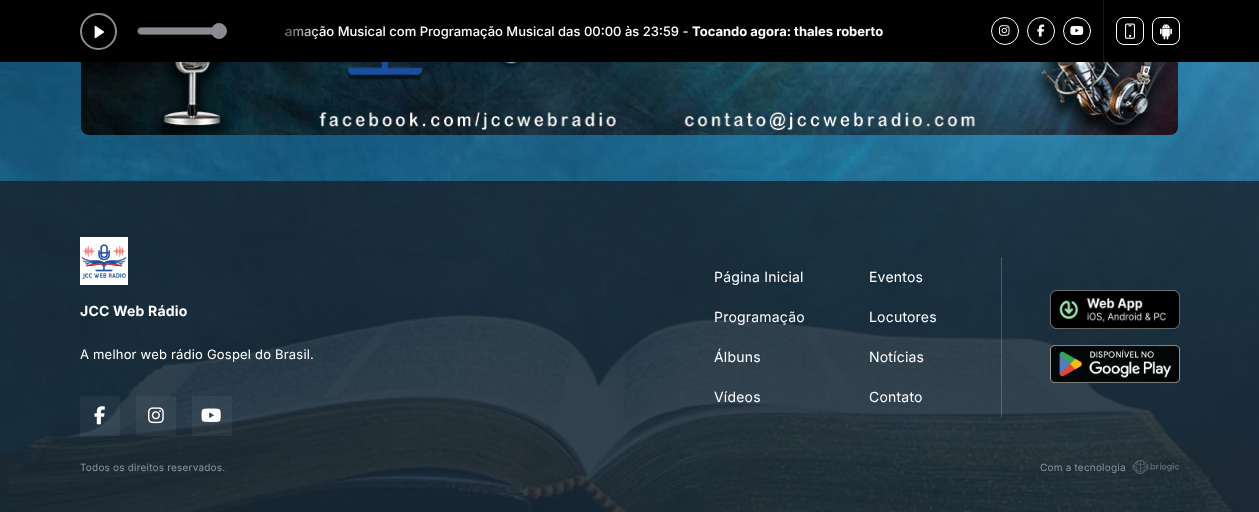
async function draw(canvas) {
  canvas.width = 1259;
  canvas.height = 512;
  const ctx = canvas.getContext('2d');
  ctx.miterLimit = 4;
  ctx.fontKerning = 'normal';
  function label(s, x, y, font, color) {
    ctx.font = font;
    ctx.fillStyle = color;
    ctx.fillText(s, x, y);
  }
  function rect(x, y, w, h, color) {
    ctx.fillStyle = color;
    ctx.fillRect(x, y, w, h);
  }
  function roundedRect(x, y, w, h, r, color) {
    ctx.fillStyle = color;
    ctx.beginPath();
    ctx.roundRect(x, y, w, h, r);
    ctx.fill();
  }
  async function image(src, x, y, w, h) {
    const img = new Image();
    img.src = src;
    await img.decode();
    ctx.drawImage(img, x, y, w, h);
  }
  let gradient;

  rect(0, 0, 1259, 512, '#136c9c');
  rect(0, 0, 1259, 62, '#000');
  ctx.beginPath();
  ctx.arc(98.5, 31.5, 17.5, 0, 2 * Math.PI);
  ctx.strokeStyle = '#8a8b90';
  ctx.lineWidth = 2;
  ctx.stroke();
  await image('assets/img1.png', 94, 25, 11, 14);
  ctx.beginPath();
  ctx.roundRect(137.5, 27.5, 82, 7, 3.5);
  ctx.strokeStyle = '#535353';
  ctx.lineWidth = 1;
  ctx.stroke();
  roundedRect(138, 28, 81, 6, 3, '#8a8b90');
  ctx.beginPath();
  ctx.arc(219, 31, 7.5, 0, 2 * Math.PI);
  ctx.fill();
  ctx.strokeStyle = '#8a8b90';
  ctx.stroke();
  label('amação Musical com Programação Musical das 00:00 às 23:59 -', 285, 36, '500 13px Inter', '#fff');
  label('Tocando agora: thales roberto', 692, 36, 'bold 13px Inter', '#fff');
  gradient = ctx.createLinearGradient(252, 31, 323, 31);
  gradient.addColorStop(0.2, '#000');
  gradient.addColorStop(1, '#00000000');
  ctx.fillStyle = gradient;
  ctx.fillRect(286, 26, 36, 13);
  ctx.beginPath();
  ctx.arc(1005, 31, 13.5, 0, 2 * Math.PI);
  ctx.strokeStyle = '#fff';
  ctx.stroke();
  await image('assets/img2.png', 999, 25, 11, 11);
  ctx.beginPath();
  ctx.arc(1041, 31, 13.5, 0, 2 * Math.PI);
  ctx.stroke();
  await image('assets/img3.png', 1037, 24, 8, 13);
  ctx.beginPath();
  ctx.arc(1077, 31, 13.5, 0, 2 * Math.PI);
  ctx.stroke();
  await image('assets/img4.png', 1070, 26, 14, 9);
  rect(1103, 0, 1, 62, '#1a1a1a');
  ctx.beginPath();
  ctx.roundRect(1116.5, 17.5, 27, 27, 7.5);
  ctx.stroke();
  await image('assets/img5.png', 1125, 23, 10, 16);
  ctx.beginPath();
  ctx.roundRect(1152.5, 17.5, 27, 27, 7.5);
  ctx.stroke();
  await image('assets/img6.png', 1160, 23, 12, 17);
  await image('assets/img15.png', 0, 62, 1259, 450);
  await image('assets/img7.png', 81, 62, 1097, 73);
  rect(0, 181, 1259, 331, '#18181db3');
  await image('assets/img8.png', 80, 237, 48, 48);
  ctx.letterSpacing = '0.2px';
  label('JCC Web Rádio', 80, 316, 'bold 14px Inter', '#fff');
  label('A melhor web rádio Gospel do Brasil.', 80, 359, '13px Inter', '#fff');
  rect(80, 396, 40, 40, '#ffffff0d');
  await image('assets/img9.png', 94, 406, 11, 19);
  rect(136, 396, 40, 40, '#ffffff0d');
  await image('assets/img10.png', 148, 407, 16, 17);
  rect(192, 396, 40, 40, '#ffffff0d');
  await image('assets/img11.png', 201, 408, 20, 14);
  rect(1001, 257, 1, 160, '#ffffff33');
  label('Página Inicial', 714, 282, '14px Inter', '#fff');
  label('Eventos', 869, 282, '14px Inter', '#fff');
  label('Programação', 714, 322, '14px Inter', '#fff');
  label('Locutores', 869, 322, '14px Inter', '#fff');
  label('Álbuns', 714, 362, '14px Inter', '#fff');
  label('Notícias', 869, 362, '14px Inter', '#fff');
  label('Vídeos', 714, 402, '14px Inter', '#fff');
  label('Contato', 869, 402, '14px Inter', '#fff');
  await image('assets/img12.png', 1050, 290, 130, 39);
  await image('assets/img13.png', 1050, 345, 130, 38);
  label('Todos os direitos reservados.', 80, 471, '10px Inter', '#8e959a');
  label('Com a tecnologia', 1040, 471, '10px Inter', '#8e959a');
  await image('assets/img14.png', 1132, 460, 47, 14);
}

draw(document.querySelector('canvas'));
